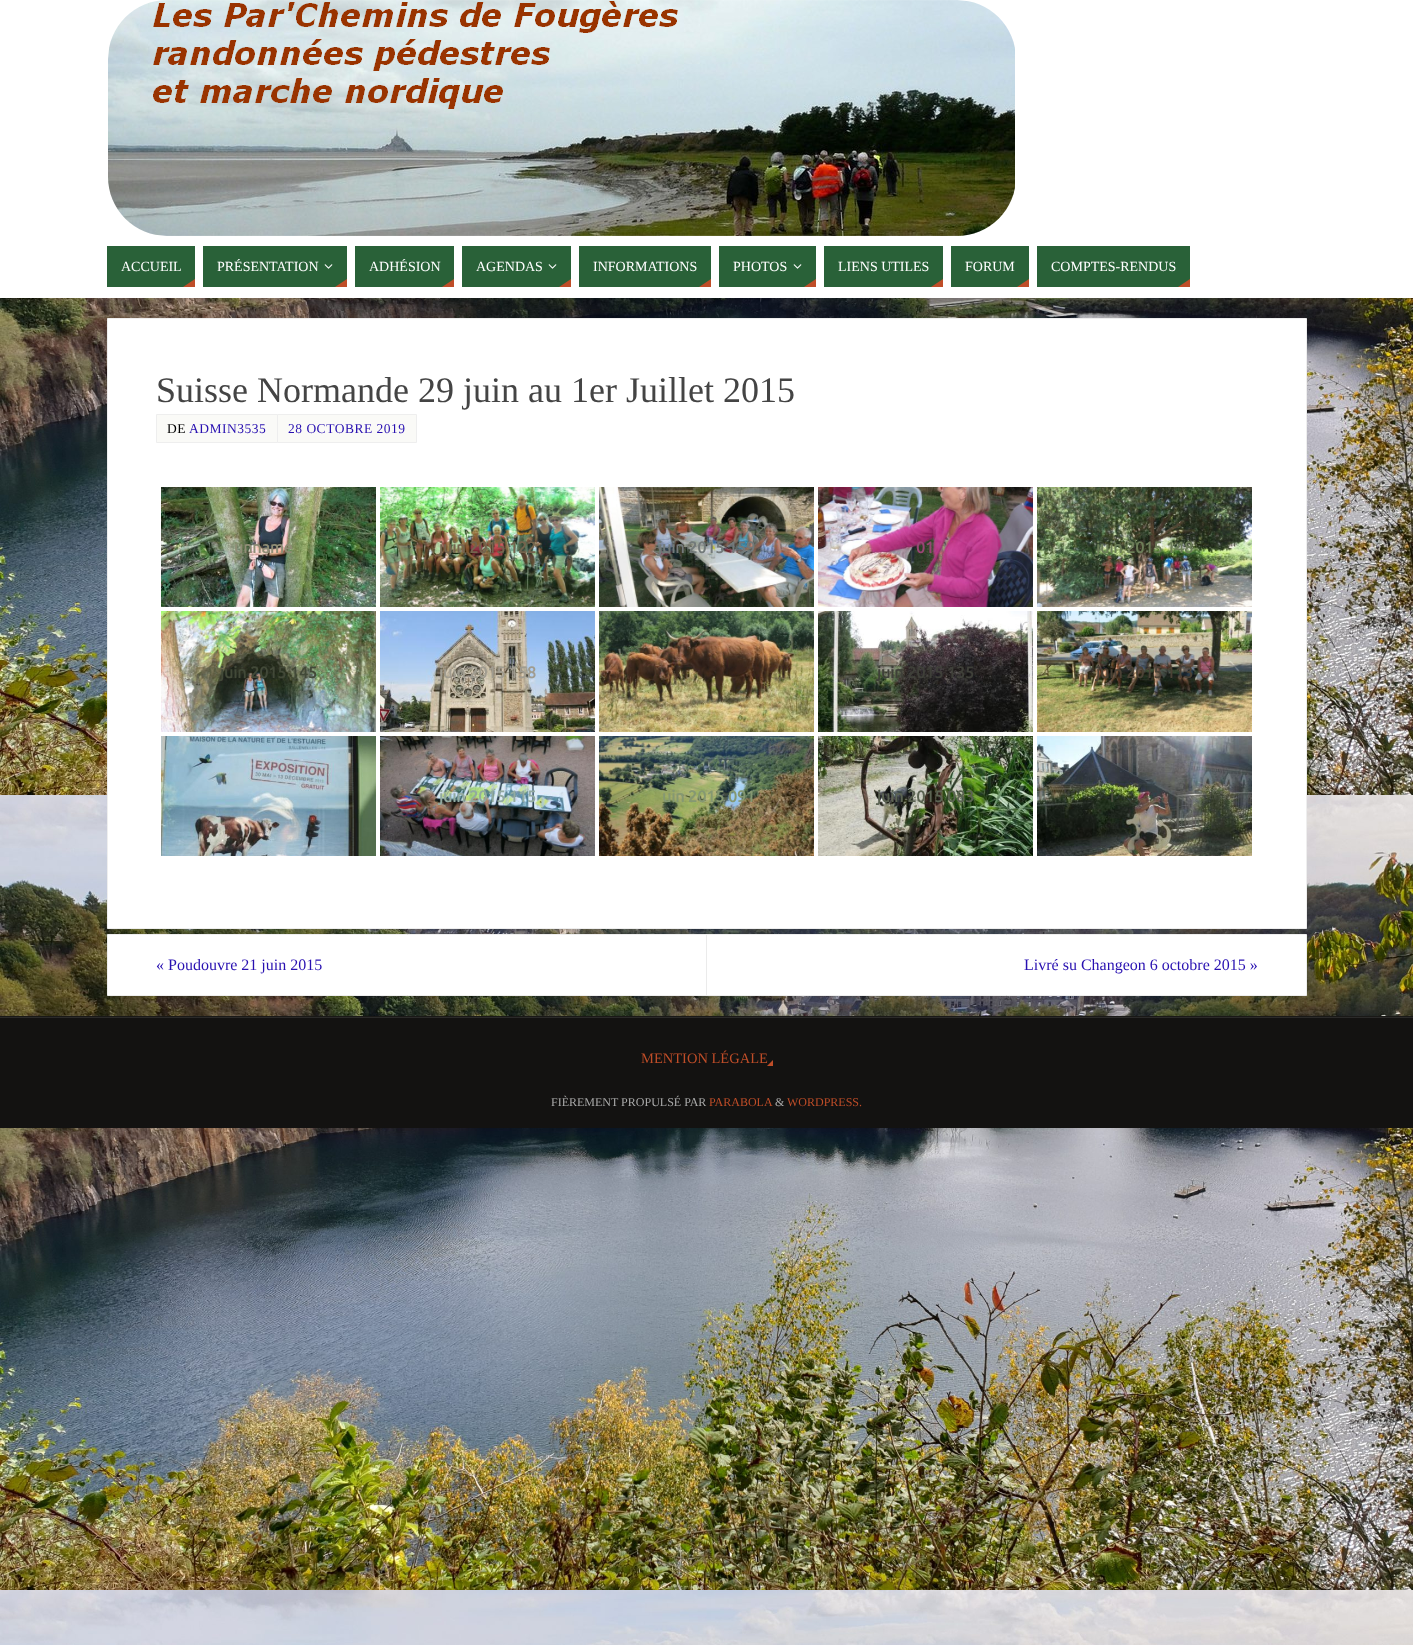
async function draw(canvas) {
  canvas.width = 1413;
  canvas.height = 1645;
  const ctx = canvas.getContext('2d');
  ctx.miterLimit = 4;
  ctx.fontKerning = 'normal';
  function label(s, x, y, font, color) {
    ctx.font = font;
    ctx.fillStyle = color;
    ctx.fillText(s, x, y);
  }
  function rect(x, y, w, h, color) {
    ctx.fillStyle = color;
    ctx.fillRect(x, y, w, h);
  }
  async function image(src, x, y, w, h) {
    const img = new Image();
    img.src = src;
    await img.decode();
    ctx.drawImage(img, x, y, w, h);
  }
  let path;

  rect(0, 0, 1413, 1645, '#fff');
  await image('assets/img1.png', 0, 298, 1413, 1347);
  await image('assets/img2.png', 108, 0, 907, 236);
  rect(107, 246, 88, 41, '#296138');
  label('ACCUEIL', 121, 271, '14px Liberation Serif', '#fff');
  ctx.fillStyle = '#bf4d28';
  path = new Path2D('M195 287H183L195 279Z');
  ctx.fill(path);
  rect(203, 246, 144, 41, '#296138');
  label('PRÉSENTATION', 217, 271, '14px Liberation Serif', '#fff');
  await image('assets/img3.png', 324, 264, 9, 5);
  ctx.fillStyle = '#bf4d28';
  path = new Path2D('M347 287H335L347 279Z');
  ctx.fill(path);
  rect(355, 246, 99, 41, '#296138');
  label('ADHÉSION', 369, 271, '14px Liberation Serif', '#fff');
  ctx.fillStyle = '#bf4d28';
  path = new Path2D('M454 287H442L454 279Z');
  ctx.fill(path);
  rect(462, 246, 109, 41, '#296138');
  label('AGENDAS', 476, 271, '14px Liberation Serif', '#fff');
  await image('assets/img3.png', 548, 264, 9, 5);
  ctx.fillStyle = '#bf4d28';
  path = new Path2D('M571 287H559L571 279Z');
  ctx.fill(path);
  rect(579, 246, 132, 41, '#296138');
  label('INFORMATIONS', 593, 271, '14px Liberation Serif', '#fff');
  ctx.fillStyle = '#bf4d28';
  path = new Path2D('M711 287H699L711 279Z');
  ctx.fill(path);
  rect(719, 246, 97, 41, '#296138');
  label('PHOTOS', 733, 271, '14px Liberation Serif', '#fff');
  await image('assets/img3.png', 793, 264, 9, 5);
  ctx.fillStyle = '#bf4d28';
  path = new Path2D('M816 287H804L816 279Z');
  ctx.fill(path);
  rect(824, 246, 119, 41, '#296138');
  label('LIENS UTILES', 838, 271, '14px Liberation Serif', '#fff');
  ctx.fillStyle = '#bf4d28';
  path = new Path2D('M943 287H931L943 279Z');
  ctx.fill(path);
  rect(951, 246, 78, 41, '#296138');
  label('FORUM', 965, 271, '14px Liberation Serif', '#fff');
  ctx.fillStyle = '#bf4d28';
  path = new Path2D('M1029 287H1017L1029 279Z');
  ctx.fill(path);
  rect(1037, 246, 153, 41, '#296138');
  label('COMPTES-RENDUS', 1051, 271, '14px Liberation Serif', '#fff');
  ctx.fillStyle = '#bf4d28';
  path = new Path2D('M1190 287H1178L1190 279Z');
  ctx.fill(path);
  ctx.fillStyle = '#fff';
  ctx.beginPath();
  ctx.rect(107.5, 318.5, 1199, 610);
  ctx.fill();
  ctx.strokeStyle = '#eee';
  ctx.stroke();
  label('Suisse Normande 29 juin au 1er Juillet 2015', 156, 402, '36px Liberation Serif', '#444');
  ctx.fillStyle = '#fafaf7';
  ctx.beginPath();
  ctx.rect(156.5, 414.5, 121, 28);
  ctx.fill();
  ctx.stroke();
  ctx.letterSpacing = '0.5px';
  label('DE', 167, 433, '13.5px Liberation Serif', '#000');
  label('ADMIN3535', 189, 433, '13.5px Liberation Serif', '#2810b1');
  ctx.fillStyle = '#fafaf7';
  ctx.beginPath();
  ctx.rect(277.5, 414.5, 139, 28);
  ctx.fill();
  ctx.stroke();
  label('28 OCTOBRE 2019', 288, 433, '13.5px Liberation Serif', '#2810b1');
  await image('assets/img4.png', 161, 487, 215, 120);
  ctx.letterSpacing = '0px';
  label('unname', 234, 553, 'bold 16px Ubuntu', '#8f8d75');
  await image('assets/img5.png', 380, 487, 215, 120);
  label('juin 2015 122', 439, 553, 'bold 16px Ubuntu', '#74644e');
  await image('assets/img6.png', 599, 487, 215, 120);
  label('juin 2015 159', 658, 553, 'bold 16px Ubuntu', '#737a7a');
  await image('assets/img7.png', 818, 487, 215, 120);
  label('01', 916, 553, 'bold 16px Ubuntu', '#9a4575');
  await image('assets/img8.png', 1037, 487, 215, 120);
  label('juin 2015 148', 1096, 553, 'bold 16px Ubuntu', '#6c7d58');
  await image('assets/img9.png', 161, 611, 215, 121);
  label('juin 2015 145', 220, 678, 'bold 16px Ubuntu', '#424938');
  await image('assets/img10.png', 380, 611, 215, 121);
  label('juin 2015 158', 439, 678, 'bold 16px Ubuntu', '#a09c90');
  await image('assets/img11.png', 599, 611, 215, 121);
  await image('assets/img12.png', 818, 611, 215, 121);
  label('juin 2015 135', 877, 678, 'bold 16px Ubuntu', '#3f4039');
  await image('assets/img13.png', 1037, 611, 215, 121);
  label('juin 2015 113', 1096, 678, 'bold 16px Ubuntu', '#4b4236');
  await image('assets/img14.png', 161, 736, 215, 120);
  await image('assets/img15.png', 380, 736, 215, 120);
  label('juin 2015 115', 439, 802, 'bold 16px Ubuntu', '#92aaa0');
  await image('assets/img16.png', 599, 736, 215, 120);
  label('uin 2015 091', 662, 802, 'bold 16px Ubuntu', '#859872');
  await image('assets/img17.png', 818, 736, 215, 120);
  label('juin 2015 083', 877, 802, 'bold 16px Ubuntu', '#5b6352');
  await image('assets/img18.png', 1037, 736, 215, 120);
  label('i', 1110, 802, 'bold 16px Ubuntu', '#494e3e');
  ctx.fillStyle = '#fff';
  ctx.beginPath();
  ctx.rect(107.5, 934.5, 1199, 61);
  ctx.fill();
  ctx.stroke();
  rect(706, 935, 1, 60, '#ebebeb');
  label('« Poudouvre 21 juin 2015', 156, 970, '16px Liberation Serif', '#2810b1');
  label('Livré su Changeon 6 octobre 2015 »', 1024, 970, '16px Liberation Serif', '#2810b1');
  rect(0, 1016, 1413, 1, '#1a1917');
  rect(0, 1018, 1413, 110, '#131211');
  rect(0, 1017, 1413, 1, '#2b2a29');
  label('MENTION LÉGALE', 641, 1063, '14.5px Liberation Serif', '#bf4d28');
  path = new Path2D('M773 1066H767L773 1060Z');
  ctx.fill(path);
  label('FIÈREMENT PROPULSÉ PAR', 551, 1106, '12px Liberation Serif', '#aaa');
  label('PARABOLA', 709, 1106, '12px Liberation Serif', '#bf4d28');
  label('&', 775, 1106, '12px Liberation Serif', '#aaa');
  label('WORDPRESS.', 787, 1106, '12px Liberation Serif', '#bf4d28');
}

draw(document.querySelector('canvas'));
